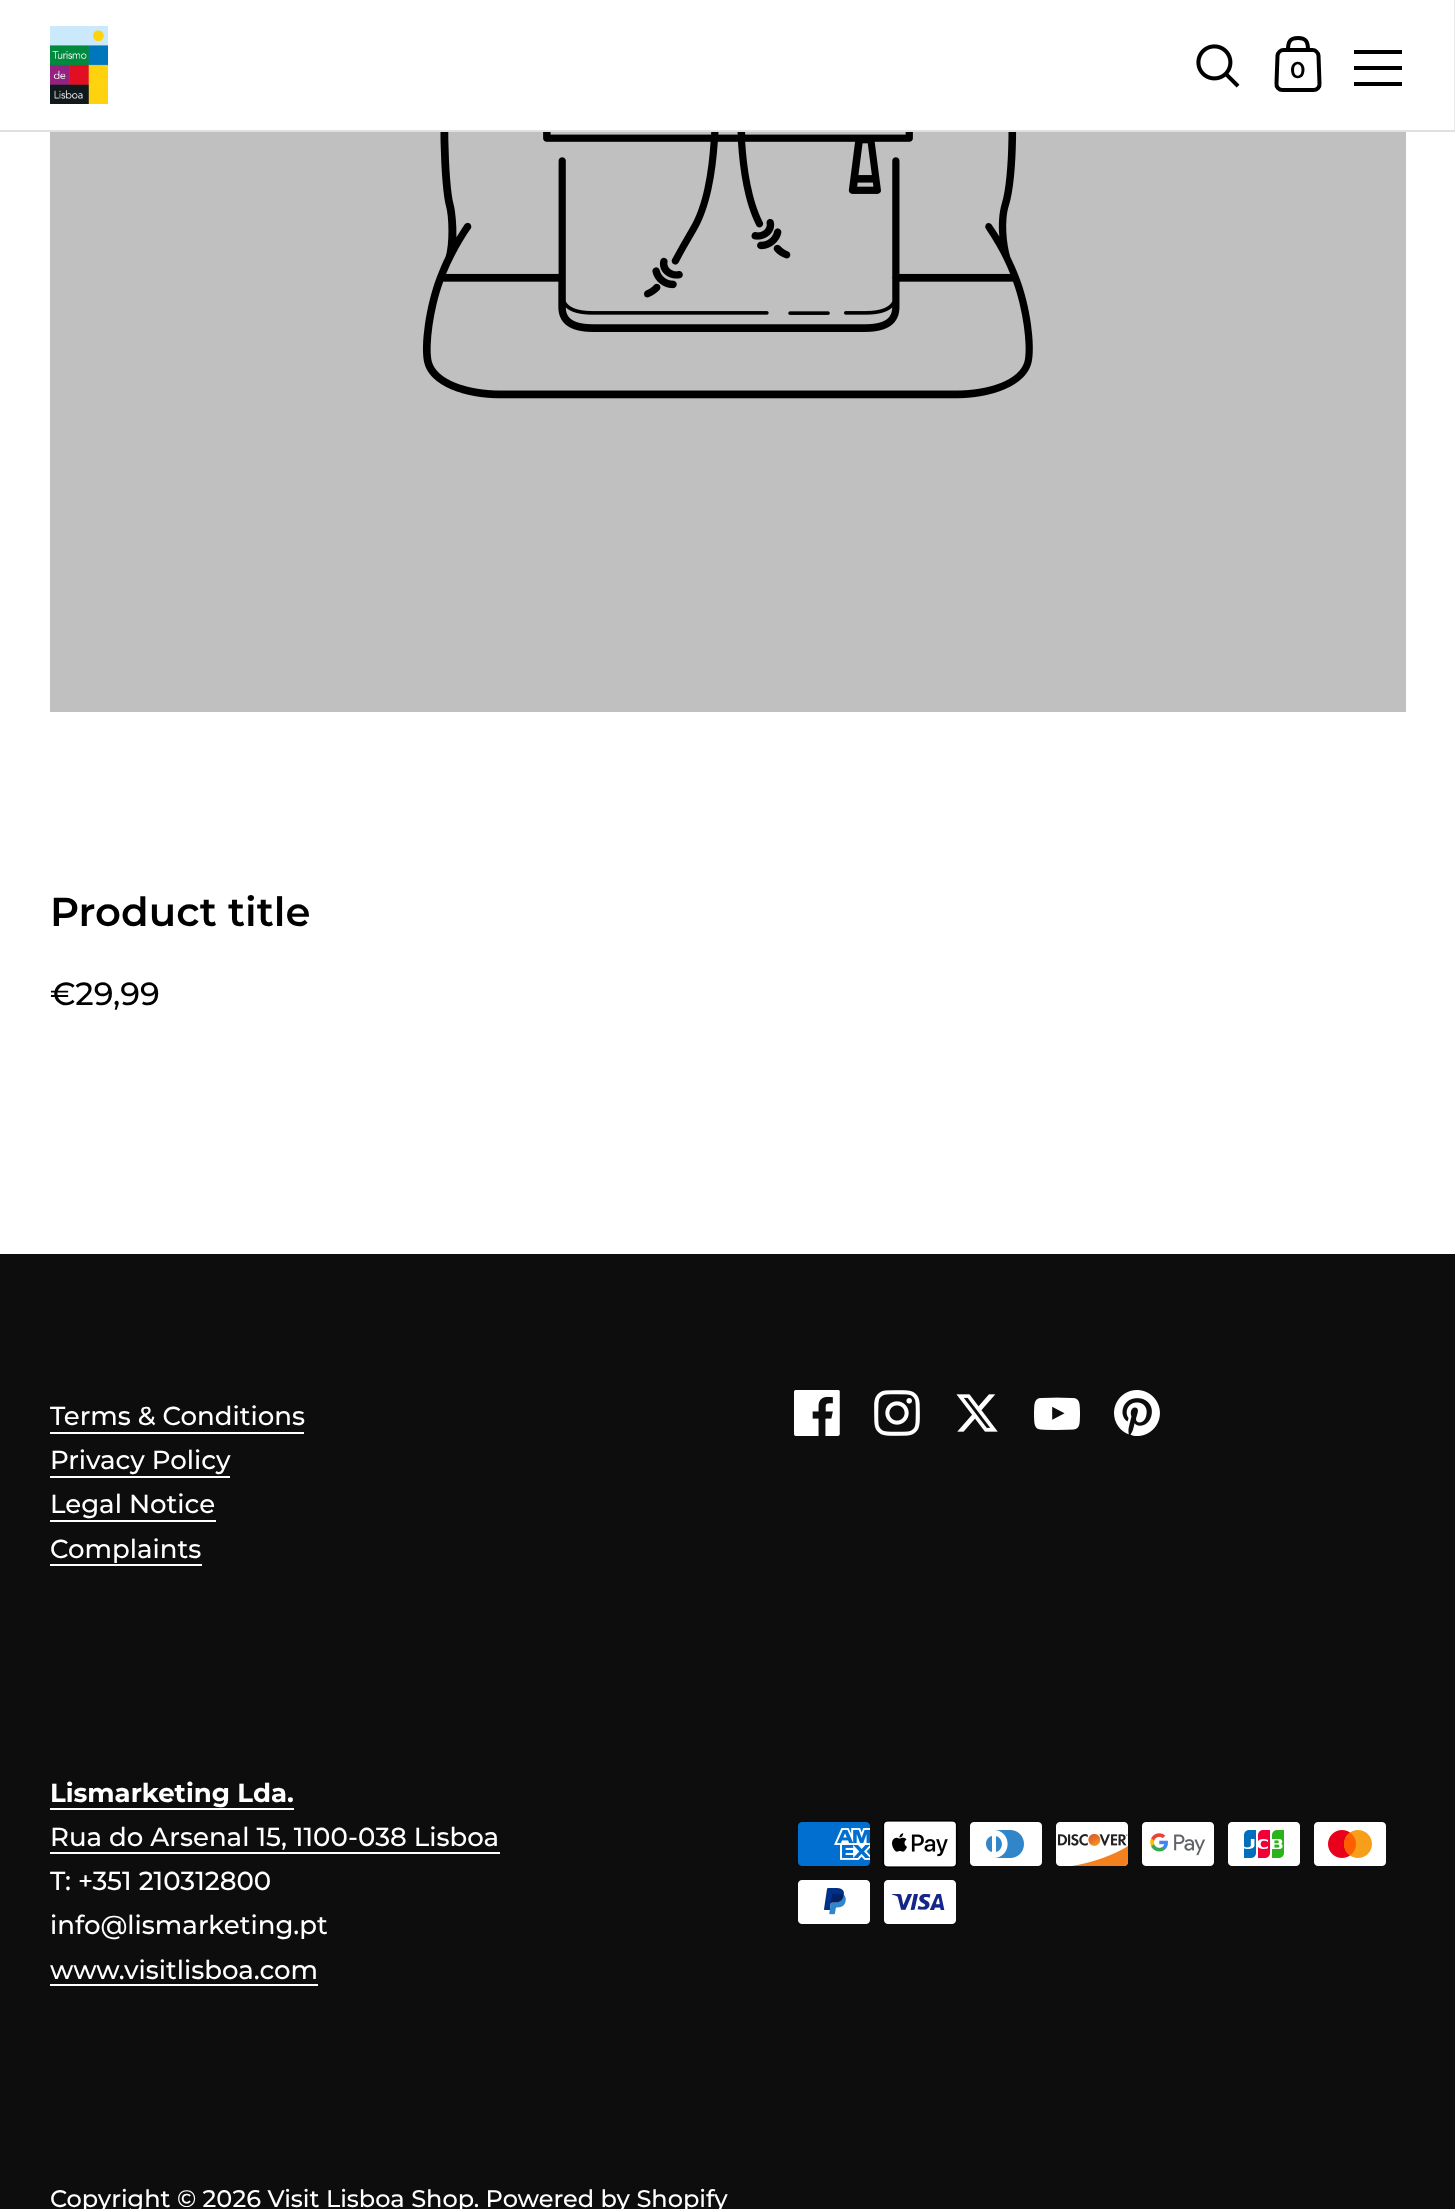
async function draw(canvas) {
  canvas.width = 1455;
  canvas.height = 2209;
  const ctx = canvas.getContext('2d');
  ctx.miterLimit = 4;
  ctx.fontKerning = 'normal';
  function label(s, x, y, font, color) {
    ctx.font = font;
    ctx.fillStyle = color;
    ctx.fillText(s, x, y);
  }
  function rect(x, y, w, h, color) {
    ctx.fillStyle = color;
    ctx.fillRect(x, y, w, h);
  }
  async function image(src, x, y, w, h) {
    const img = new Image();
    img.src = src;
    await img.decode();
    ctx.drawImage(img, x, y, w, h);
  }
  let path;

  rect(0, 0, 1455, 2209, '#fff');
  rect(0, 130, 1455, 2, '#e0e0e0');
  rect(1454, 0, 1, 130, '#ebebeb');
  await image('assets/img1.png', 50, 26, 58, 78);
  await image('assets/img2.png', 1196, 44, 44, 44);
  path = new Path2D('M1288 50H1283.5C1280.5 50 1278 52.5 1277.5 55.5L1276.5 83.5C1276 87 1279 90 1282.5 90H1313.5C1317 90 1320 87 1319.5 83.5L1318.5 55.5C1318 52.5 1315.5 50 1312.5 50H1308M1288 50C1288 42.5 1289.5 38 1298 38C1306.5 38 1308 42.5 1308 50M1288 50H1308');
  ctx.strokeStyle = '#000';
  ctx.lineWidth = 4;
  ctx.stroke(path);
  label('0', 1290, 78, '600 23px Montserrat', '#000');
  rect(1354, 50, 48, 4, '#000');
  rect(1354, 66, 48, 4, '#000');
  rect(1354, 82, 48, 4, '#000');
  rect(50, 132, 1356, 580, '#c0c0c0');
  await image('assets/img3.png', 422, 132, 611, 267);
  label('Product title', 50, 926, '600 40.25px Montserrat', '#000');
  label('€29,99', 50, 1005, '500 32px Montserrat', '#000');
  rect(0, 1254, 1455, 955, '#0d0d0d');
  label('Terms & Conditions', 50, 1425, '500 26px Montserrat', '#fff');
  rect(50, 1432, 254, 2, '#fff');
  label('Privacy Policy', 50, 1469, '500 26px Montserrat', '#fff');
  rect(50, 1476, 180, 2, '#fff');
  label('Legal Notice', 50, 1513, '500 26px Montserrat', '#fff');
  rect(50, 1520, 166, 2, '#fff');
  label('Complaints', 50, 1558, '500 26px Montserrat', '#fff');
  rect(50, 1564, 152, 2, '#fff');
  await image('assets/img4.png', 794, 1390, 46, 46);
  await image('assets/img5.png', 874, 1390, 46, 46);
  await image('assets/img6.png', 956, 1394, 42, 38);
  await image('assets/img7.png', 1034, 1397, 46, 33);
  await image('assets/img8.png', 1114, 1390, 46, 46);
  label('Lismarketing Lda.', 50, 1802, 'bold 26px Montserrat', '#fff');
  rect(50, 1808, 244, 2, '#fff');
  label('Rua do Arsenal 15, 1100-038 Lisboa', 50, 1846, '500 26px Montserrat', '#fff');
  rect(50, 1852, 450, 2, '#fff');
  label('T: +351 210312800', 50, 1890, '500 26px Montserrat', '#fff');
  label('info@lismarketing.pt', 50, 1934, '500 26px Montserrat', '#fff');
  label('www.visitlisboa.com', 50, 1979, '500 26px Montserrat', '#fff');
  rect(50, 1984, 268, 2, '#fff');
  await image('assets/img9.png', 798, 1822, 72, 44);
  await image('assets/img10.png', 882, 1820, 76, 48);
  await image('assets/img11.png', 970, 1822, 72, 44);
  await image('assets/img12.png', 1056, 1822, 73, 44);
  await image('assets/img13.png', 1142, 1822, 72, 44);
  await image('assets/img14.png', 1228, 1822, 72, 44);
  await image('assets/img15.png', 1314, 1822, 72, 44);
  await image('assets/img16.png', 798, 1880, 72, 44);
  await image('assets/img17.png', 884, 1880, 72, 44);
  label('Copyright © 2026 Visit Lisboa Shop. Powered by Shopify', 50, 2207, '500 24px Montserrat', '#fff');
}

draw(document.querySelector('canvas'));
